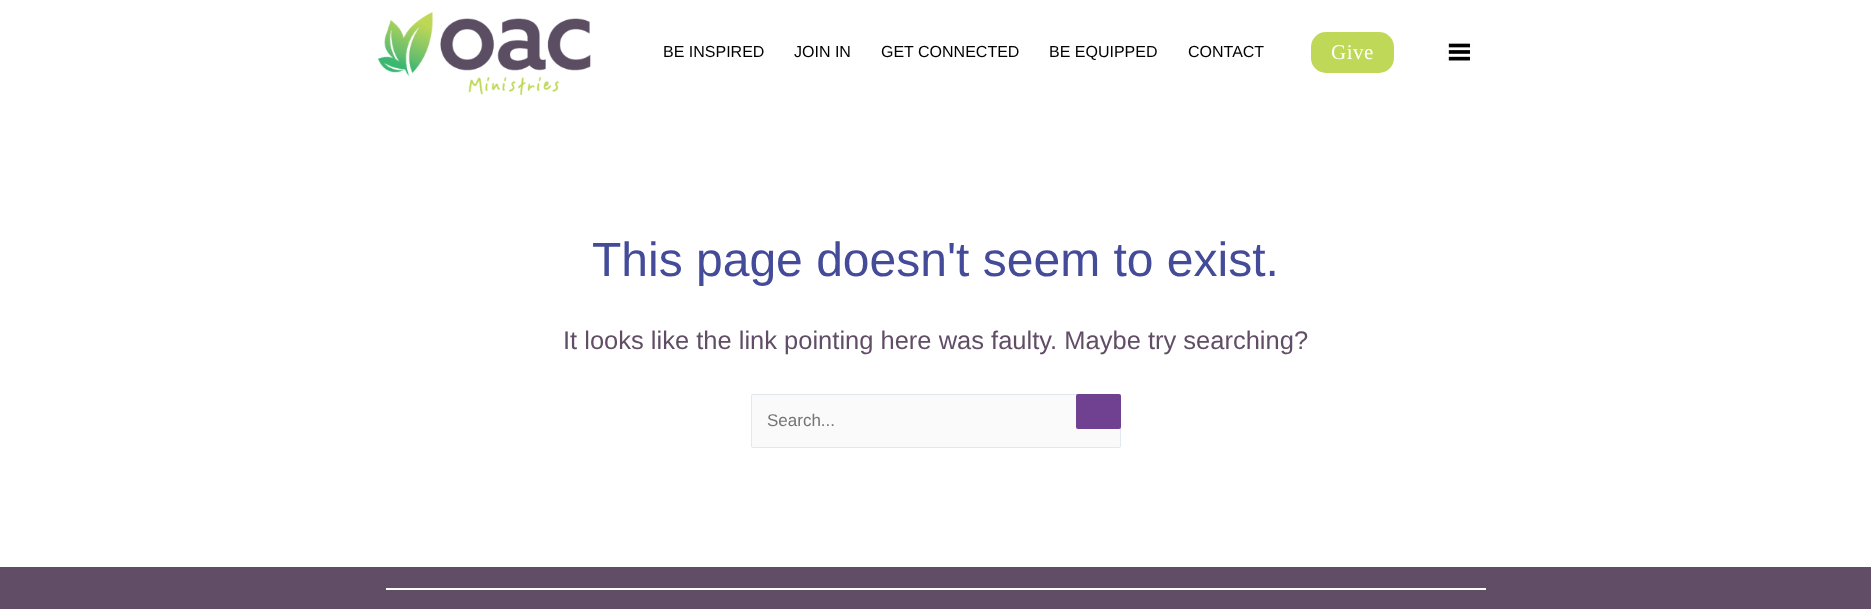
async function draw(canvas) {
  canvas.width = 1871;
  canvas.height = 609;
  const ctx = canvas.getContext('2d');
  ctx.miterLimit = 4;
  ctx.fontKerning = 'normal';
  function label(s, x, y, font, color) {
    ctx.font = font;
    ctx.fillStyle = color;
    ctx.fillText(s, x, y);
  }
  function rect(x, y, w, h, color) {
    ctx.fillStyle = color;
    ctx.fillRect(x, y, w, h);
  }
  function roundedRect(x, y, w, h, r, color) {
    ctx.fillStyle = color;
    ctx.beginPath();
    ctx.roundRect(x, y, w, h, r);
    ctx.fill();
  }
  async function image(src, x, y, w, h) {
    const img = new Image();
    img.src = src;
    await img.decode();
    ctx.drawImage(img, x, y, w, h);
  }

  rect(0, 0, 1871, 609, '#fff');
  await image('assets/img1.png', 377, 12, 214, 83);
  label('BE INSPIRED', 663, 57, '16px Liberation Sans', '#000');
  label('JOIN IN', 794, 57, '16px Liberation Sans', '#000');
  label('GET CONNECTED', 881, 57, '16px Liberation Sans', '#000');
  label('BE EQUIPPED', 1049, 57, '16px Liberation Sans', '#000');
  label('CONTACT', 1188, 57, '16px Liberation Sans', '#000');
  roundedRect(1311, 32, 83, 41, 15, '#bfd857');
  ctx.letterSpacing = '0.5px';
  label('Give', 1331, 59, '21px Liberation Serif', '#fff');
  await image('assets/img2.png', 1445, 43, 28, 18);
  ctx.letterSpacing = '0px';
  label('This page doesn\'t seem to exist.', 592, 276, '48px Liberation Sans', '#444b98');
  label('It looks like the link pointing here was faulty. Maybe try searching?', 563, 349, '25.5px Liberation Sans', '#614e66');
  ctx.fillStyle = '#fafafa';
  ctx.beginPath();
  ctx.roundRect(751.5, 394.5, 369, 53, 1.5);
  ctx.fill();
  ctx.strokeStyle = '#e2e8f0';
  ctx.stroke();
  label('Search...', 767, 426, '17px Liberation Sans', '#757575');
  roundedRect(1076, 394, 45, 35, 2, '#704191');
  rect(0, 567, 1871, 42, '#614e66');
  rect(386, 588, 1100, 2, '#fff');
}

draw(document.querySelector('canvas'));
